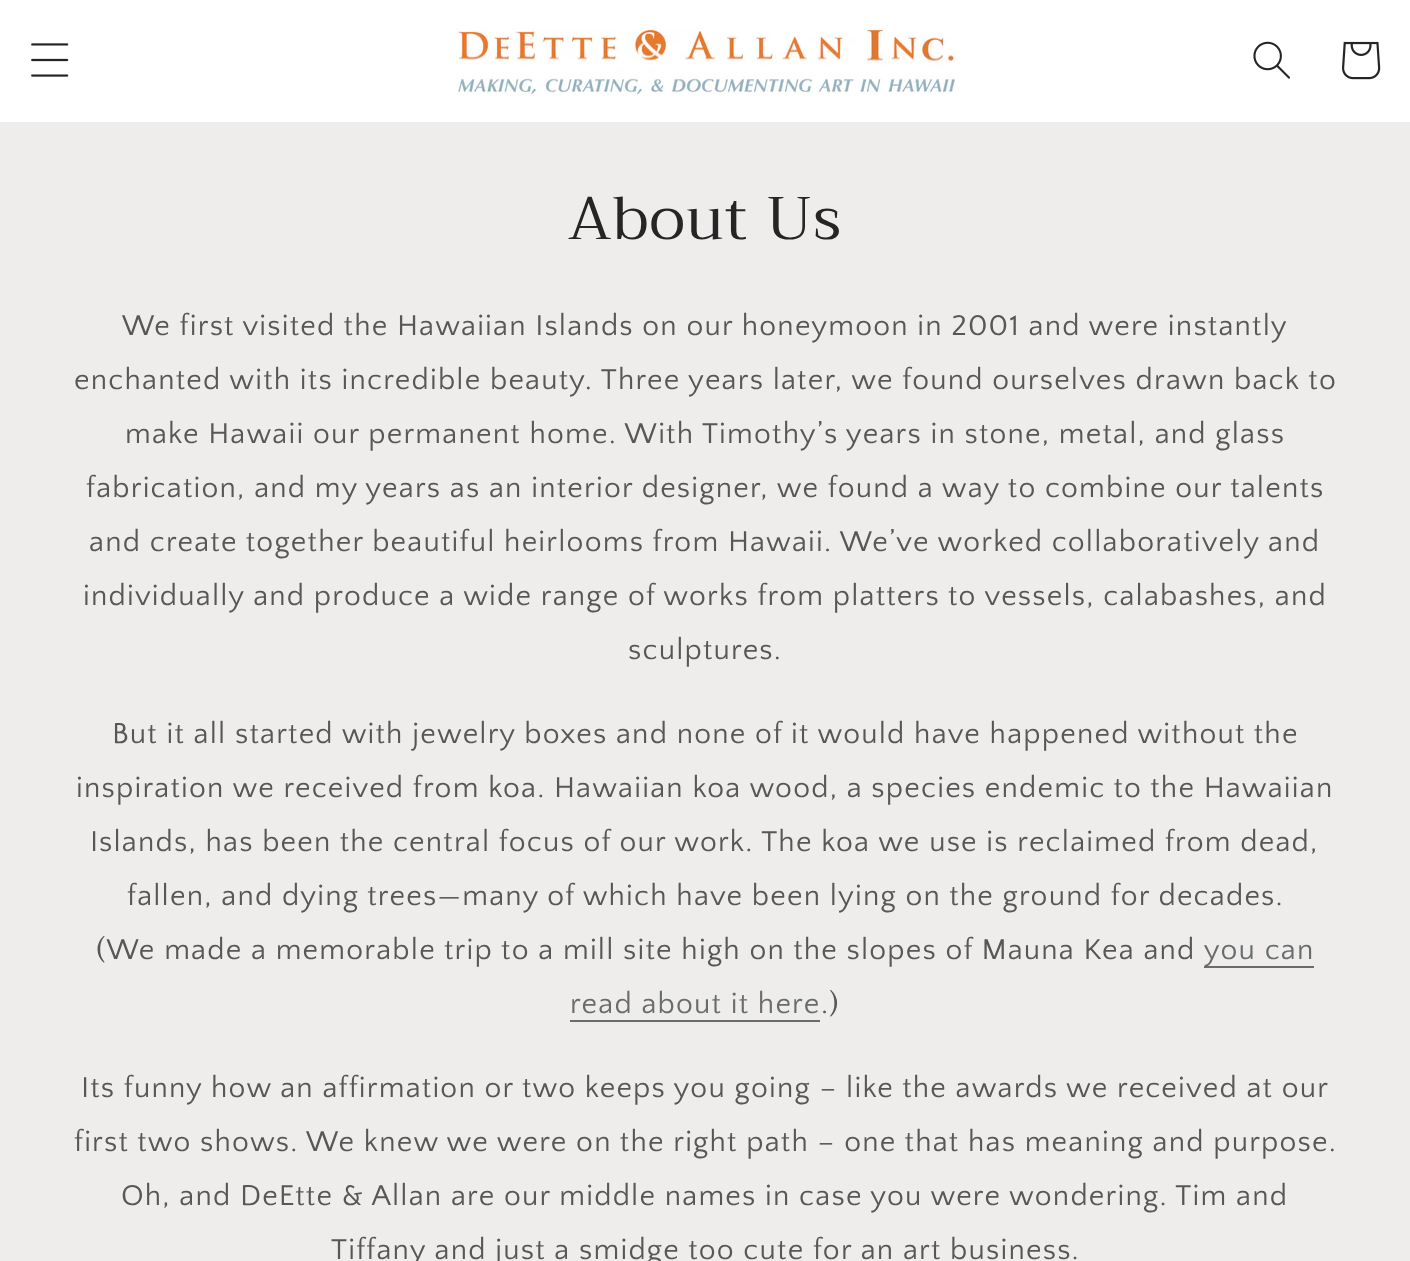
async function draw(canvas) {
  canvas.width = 1410;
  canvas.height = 1261;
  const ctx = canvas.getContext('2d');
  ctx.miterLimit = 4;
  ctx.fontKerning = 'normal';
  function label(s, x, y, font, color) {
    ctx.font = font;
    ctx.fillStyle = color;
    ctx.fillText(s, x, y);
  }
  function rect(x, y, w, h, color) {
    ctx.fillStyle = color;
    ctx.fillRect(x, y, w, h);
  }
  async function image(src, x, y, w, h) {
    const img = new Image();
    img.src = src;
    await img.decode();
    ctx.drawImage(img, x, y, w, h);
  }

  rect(0, 0, 1410, 1261, '#efecec');
  rect(0, 0, 1410, 122, '#fff');
  await image('assets/img1.png', 31, 43, 38, 34);
  await image('assets/img2.png', 456, 28, 500, 66);
  await image('assets/img3.png', 1253, 41, 37, 38);
  await image('assets/img4.png', 1342, 41, 39, 39);
  ctx.letterSpacing = '1.2px';
  label('About Us', 568, 239, '60px Trirong', '#252525');
  label('We first visited the Hawaiian Islands on our honeymoon in 2001 and were instantly', 122, 335, '30px Quattrocento Sans', '#585757');
  label('enchanted with its incredible beauty. Three years later, we found ourselves drawn back to', 74, 389, '30px Quattrocento Sans', '#585757');
  label('make Hawaii our permanent home. With Timothy’s years in stone, metal, and glass', 125, 443, '30px Quattrocento Sans', '#585757');
  label('fabrication, and my years as an interior designer, we found a way to combine our talents', 86, 497, '30px Quattrocento Sans', '#585757');
  label('and create together beautiful heirlooms from Hawaii. We’ve worked collaboratively and', 89, 551, '30px Quattrocento Sans', '#585757');
  label('individually and produce a wide range of works from platters to vessels, calabashes, and', 83, 605, '30px Quattrocento Sans', '#585757');
  label('sculptures.', 628, 659, '30px Quattrocento Sans', '#585757');
  label('But it all started with jewelry boxes and none of it would have happened without the', 112, 743, '30px Quattrocento Sans', '#585757');
  label('inspiration we received from koa. Hawaiian koa wood, a species endemic to the Hawaiian', 76, 797, '30px Quattrocento Sans', '#585757');
  label('Islands, has been the central focus of our work. The koa we use is reclaimed from dead,', 90, 851, '30px Quattrocento Sans', '#585757');
  label('fallen, and dying trees—many of which have been lying on the ground for decades.', 127, 905, '30px Quattrocento Sans', '#585757');
  label('(We made a memorable trip to a mill site high on the slopes of Mauna Kea and', 96, 959, '30px Quattrocento Sans', '#585757');
  rect(1204, 966, 110, 2, '#686d6c');
  label('you can', 1204, 959, '30px Quattrocento Sans', '#686c6c');
  label('read about it here', 570, 1013, '30px Quattrocento Sans', '#686c6c');
  rect(570, 1020, 250, 2, '#686d6c');
  label('.)', 821, 1013, '30px Quattrocento Sans', '#585757');
  label('Its funny how an affirmation or two keeps you going – like the awards we received at our', 81, 1097, '30px Quattrocento Sans', '#585757');
  label('first two shows. We knew we were on the right path – one that has meaning and purpose.', 74, 1151, '30px Quattrocento Sans', '#585757');
  label('Oh, and DeEtte & Allan are our middle names in case you were wondering. Tim and', 121, 1205, '30px Quattrocento Sans', '#585757');
  label('Tiffany and just a smidge too cute for an art business.', 331, 1259, '30px Quattrocento Sans', '#585757');
}

draw(document.querySelector('canvas'));
